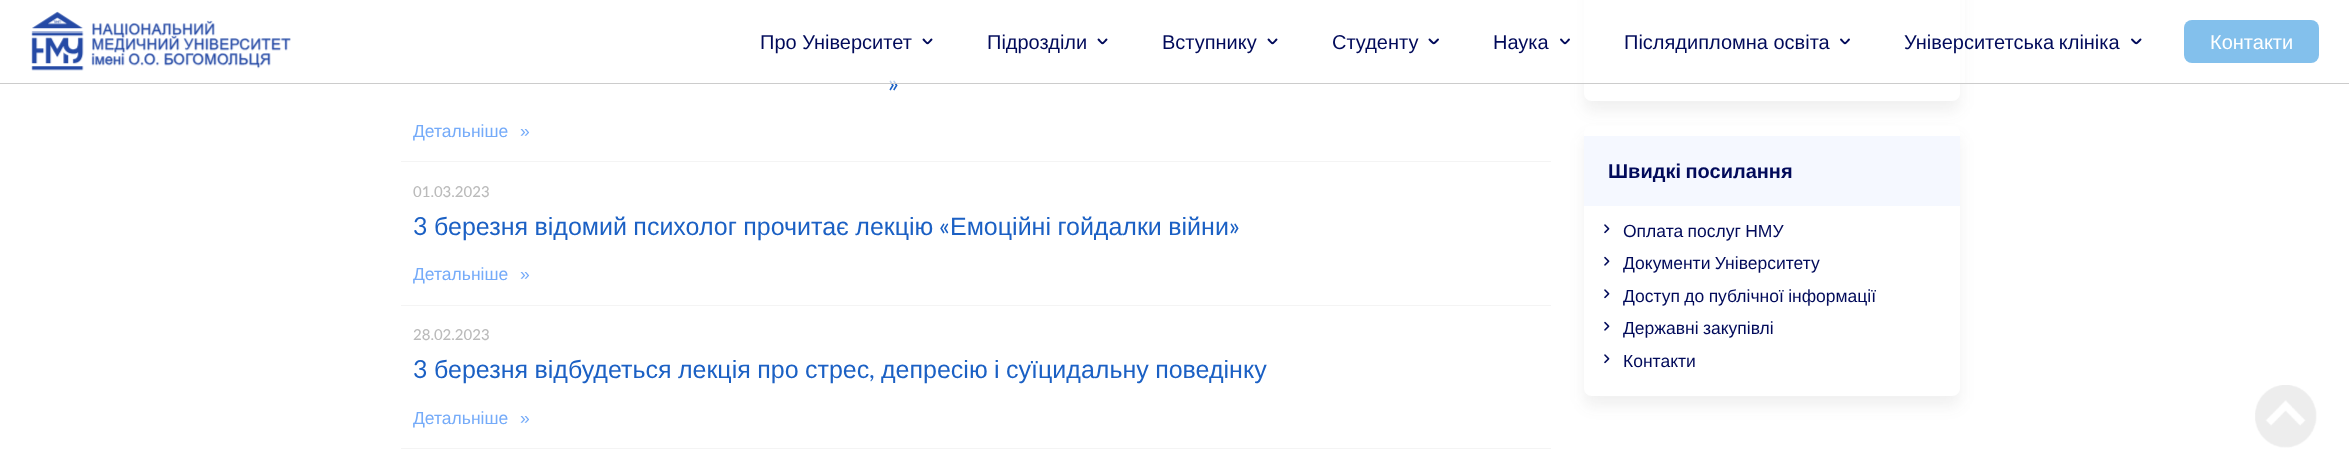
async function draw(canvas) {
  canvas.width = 2349;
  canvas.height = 460;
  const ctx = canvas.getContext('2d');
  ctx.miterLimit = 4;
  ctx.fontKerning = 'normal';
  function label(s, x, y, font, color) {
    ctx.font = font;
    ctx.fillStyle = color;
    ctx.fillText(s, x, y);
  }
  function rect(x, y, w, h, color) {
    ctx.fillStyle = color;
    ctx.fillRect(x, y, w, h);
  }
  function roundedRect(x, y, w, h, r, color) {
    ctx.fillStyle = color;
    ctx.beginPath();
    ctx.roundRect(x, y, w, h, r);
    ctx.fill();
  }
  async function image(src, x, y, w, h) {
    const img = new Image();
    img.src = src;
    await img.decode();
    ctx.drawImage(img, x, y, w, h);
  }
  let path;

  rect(0, 0, 2349, 460, '#fff');
  label('»', 888, 92, '25px Lato', '#1b60c4');
  ctx.save();
  path = new Path2D('M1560 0H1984V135H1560ZM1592-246H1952C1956.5-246 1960-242.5 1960-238V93C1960 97.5 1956.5 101 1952 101H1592C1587.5 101 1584 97.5 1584 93V-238C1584-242.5 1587.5-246 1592-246Z');
  ctx.clip(path, 'evenodd');
  ctx.fillStyle = '#44444414';
  ctx.filter = 'blur(7.5px)';
  ctx.beginPath();
  ctx.roundRect(1584, -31, 376, 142, 8);
  ctx.fill();
  ctx.filter = 'none';
  ctx.restore();
  rect(889, 0, 1076, 83, '#ffffffb3');
  rect(0, 83, 2349, 1, '#ccc');
  await image('assets/img1.png', 31, 11, 260, 60);
  label('Про Університет', 760, 49, '20px Liberation Sans', '#010a5a');
  path = new Path2D('M931.5 39.5C927 44.5 928 44.5 923.5 39.5');
  ctx.strokeStyle = '#010a5a';
  ctx.lineWidth = 1.9;
  ctx.lineCap = 'round';
  ctx.lineJoin = 'round';
  ctx.stroke(path);
  label('Підрозділи', 987, 49, '20px Liberation Sans', '#010a5a');
  path = new Path2D('M1106.5 39.5C1102 44.5 1103 44.5 1098.5 39.5');
  ctx.stroke(path);
  label('Вступнику', 1162, 49, '20px Liberation Sans', '#010a5a');
  path = new Path2D('M1276.5 39.5C1272 44.5 1273 44.5 1268.5 39.5');
  ctx.stroke(path);
  label('Студенту', 1332, 49, '20px Liberation Sans', '#010a5a');
  path = new Path2D('M1438 39.5C1433 44.5 1434.5 44.5 1429.5 39.5');
  ctx.stroke(path);
  label('Наука', 1493, 49, '20px Liberation Sans', '#010a5a');
  path = new Path2D('M1569 39.5C1564.5 44.5 1565.5 44.5 1561 39.5');
  ctx.stroke(path);
  label('Післядипломна освіта', 1624, 49, '20px Liberation Sans', '#010a5a');
  path = new Path2D('M1849 39.5C1844.5 44.5 1845.5 44.5 1841 39.5');
  ctx.stroke(path);
  ctx.wordSpacing = '-1px';
  label('Університетська клініка', 1904, 49, '20px Liberation Sans', '#010a5a');
  path = new Path2D('M2140.5 39.5C2135.5 44.5 2137 44.5 2132 39.5');
  ctx.stroke(path);
  roundedRect(2184, 20, 135, 43, 8, '#83c0ec');
  ctx.wordSpacing = '0px';
  label('Контакти', 2210, 49, '20px Liberation Sans', '#fff');
  label('Детальніше', 413, 137, '17.5px Liberation Sans', '#75abf9');
  label('»', 520, 137, '17.5px Liberation Sans', '#75abf9');
  rect(401, 161, 1150, 1, '#f4f4f4');
  label('01.03.2023', 413, 197, '500 15px Lato', '#bbb');
  label('3', 413, 235, '25px Lato', '#1b60c4');
  ctx.wordSpacing = '-0.5px';
  label('березня відомий психолог прочитає лекцію', 434, 235, '25px Liberation Sans', '#1b60c4');
  ctx.wordSpacing = '0px';
  label('«', 939, 235, '25px Lato', '#1b60c4');
  ctx.wordSpacing = '-0.5px';
  label('Емоційні гойдалки війни', 950, 235, '25px Liberation Sans', '#1b60c4');
  ctx.wordSpacing = '0px';
  label('»', 1229, 235, '25px Lato', '#1b60c4');
  label('Детальніше', 413, 280, '17.5px Liberation Sans', '#75abf9');
  label('»', 520, 280, '17.5px Liberation Sans', '#75abf9');
  rect(401, 305, 1150, 1, '#f4f4f4');
  label('28.02.2023', 413, 340, '500 15px Lato', '#bbb');
  label('3', 413, 378, '25px Lato', '#1b60c4');
  ctx.wordSpacing = '-0.5px';
  label('березня відбудеться лекція про стрес', 434, 378, '25px Liberation Sans', '#1b60c4');
  ctx.wordSpacing = '0px';
  label(',', 869, 378, '25px Lato', '#1b60c4');
  ctx.wordSpacing = '-0.5px';
  label('депресію і суїцидальну поведінку', 881, 378, '25px Liberation Sans', '#1b60c4');
  ctx.wordSpacing = '0px';
  label('Детальніше', 413, 424, '17.5px Liberation Sans', '#75abf9');
  label('»', 520, 424, '17.5px Liberation Sans', '#75abf9');
  rect(401, 448, 1150, 1, '#f4f4f4');
  ctx.save();
  path = new Path2D('M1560 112H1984V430H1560ZM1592 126H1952C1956.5 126 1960 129.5 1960 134V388C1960 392.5 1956.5 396 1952 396H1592C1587.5 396 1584 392.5 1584 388V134C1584 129.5 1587.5 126 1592 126Z');
  ctx.clip(path, 'evenodd');
  ctx.fillStyle = '#44444414';
  ctx.filter = 'blur(7.5px)';
  ctx.beginPath();
  ctx.roundRect(1584, 136, 376, 270, 8);
  ctx.fill();
  ctx.filter = 'none';
  ctx.restore();
  rect(1584, 136, 376, 70, '#f5f8ff');
  ctx.wordSpacing = '-1px';
  label('Швидкі посилання', 1608, 178, 'bold 20px Liberation Sans', '#010a5a');
  await image('assets/img2.png', 1604, 224, 6, 10);
  ctx.wordSpacing = '-0.5px';
  label('Оплата послуг НМУ', 1623, 237, '17.5px Liberation Sans', '#010a5a');
  await image('assets/img3.png', 1604, 256, 6, 10);
  label('Документи Університету', 1623, 269, '17.5px Liberation Sans', '#010a5a');
  await image('assets/img2.png', 1604, 289, 6, 10);
  label('Доступ до публічної інформації', 1623, 302, '17.5px Liberation Sans', '#010a5a');
  await image('assets/img3.png', 1604, 321, 6, 10);
  label('Державні закупівлі', 1623, 334, '17.5px Liberation Sans', '#010a5a');
  await image('assets/img2.png', 1604, 354, 6, 10);
  ctx.wordSpacing = '0px';
  label('Контакти', 1623, 367, '17.5px Liberation Sans', '#010a5a');
  await image('assets/img4.png', 2255, 385, 62, 63);
}

draw(document.querySelector('canvas'));
